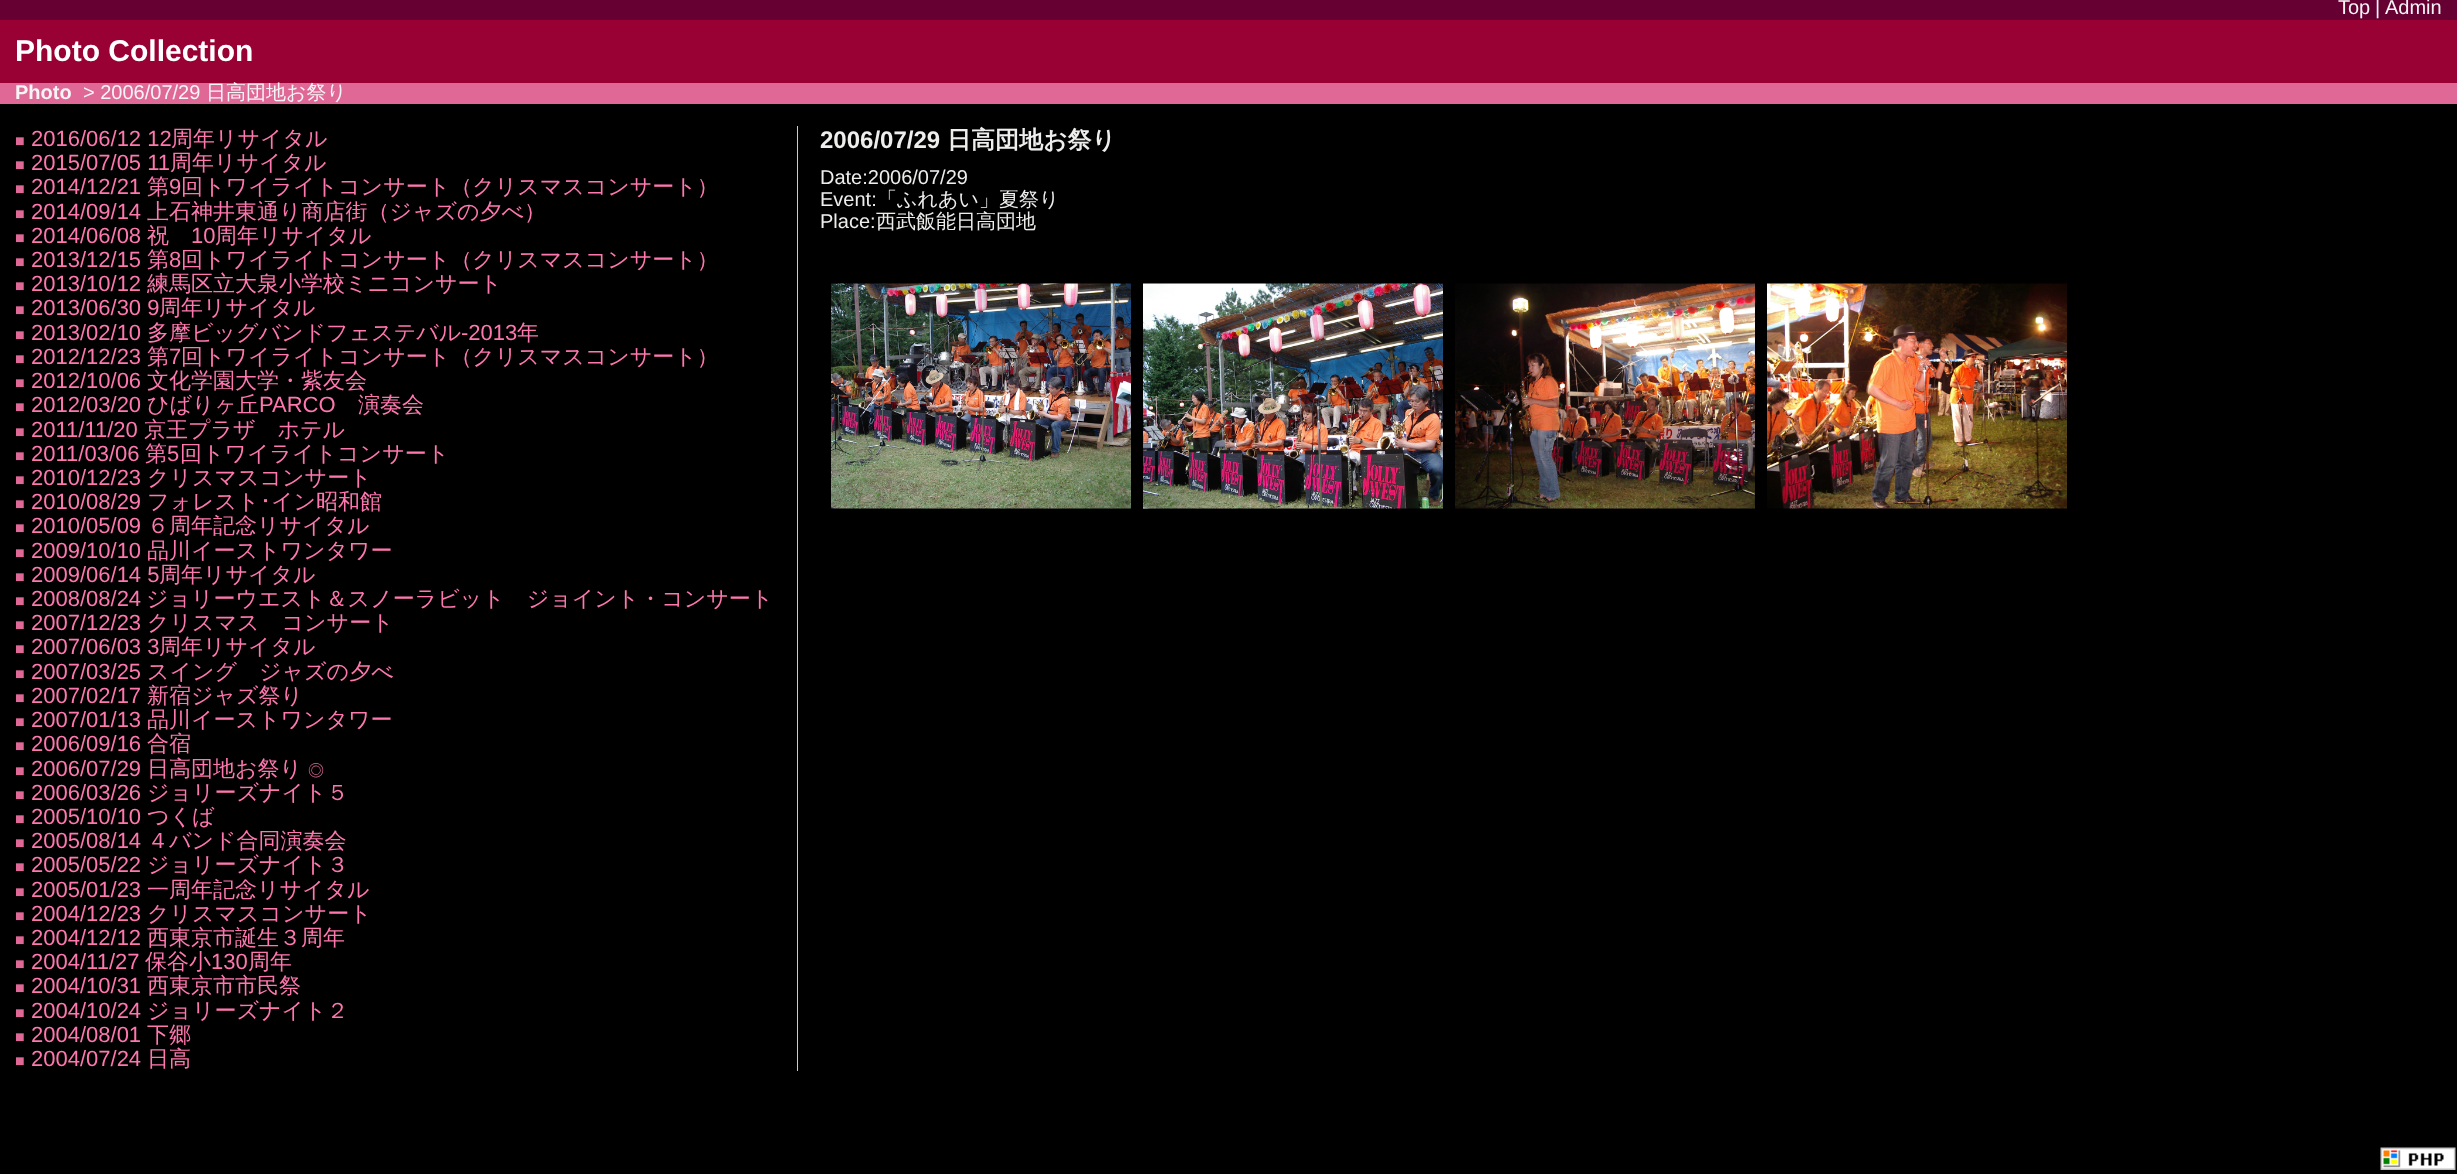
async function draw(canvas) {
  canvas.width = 2457;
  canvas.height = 1174;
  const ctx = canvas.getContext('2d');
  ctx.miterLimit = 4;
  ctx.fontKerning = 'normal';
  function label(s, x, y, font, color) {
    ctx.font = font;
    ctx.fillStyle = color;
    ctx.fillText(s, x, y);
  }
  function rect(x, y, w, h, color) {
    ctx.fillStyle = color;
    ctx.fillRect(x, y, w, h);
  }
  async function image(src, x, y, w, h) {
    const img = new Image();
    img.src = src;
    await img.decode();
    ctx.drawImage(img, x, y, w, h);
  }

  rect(0, 0, 2457, 1174, '#000001');
  rect(0, 0, 2457, 20, '#603');
  label('Top', 2338, 14, '20px Liberation Sans', '#f5f5f6');
  label('|', 2375, 14, '20px Liberation Sans', '#f5f5f6');
  label('Admin', 2385, 14, '20px Liberation Sans', '#f5f5f6');
  rect(0, 20, 2457, 63, '#903');
  label('Photo Collection', 15, 61, 'bold 30px Liberation Sans', '#fff');
  rect(0, 83, 2457, 21, '#e06897');
  label('Photo', 15, 99, 'bold 20px Liberation Sans', '#f5f5f6');
  label('> 2006/07/29', 83, 99, '20px Liberation Sans', '#f5f5f6');
  label('日高団地お祭り', 206, 99, '500 20px WenQuanYi Zen Hei', '#f5f5f6');
  rect(797, 126, 1, 945, '#ccc');
  label('■', 15, 146, '16px Liberation Sans', '#e06897');
  label('2016/06/12 12', 31, 146, '22px Liberation Sans', '#ff77af');
  label('周年リサイタル', 171, 146, '500 22px WenQuanYi Zen Hei', '#ff77af');
  label('■', 15, 170, '16px Liberation Sans', '#e06897');
  label('2015/07/05 11', 31, 170, '22px Liberation Sans', '#ff77af');
  label('周年リサイタル', 170, 170, '500 22px WenQuanYi Zen Hei', '#ff77af');
  label('■', 15, 194, '16px Liberation Sans', '#e06897');
  label('2014/12/21', 31, 194, '22px Liberation Sans', '#ff77af');
  label('第', 147, 194, '500 22px WenQuanYi Zen Hei', '#ff77af');
  label('9', 169, 194, '22px Liberation Sans', '#ff77af');
  label('回トワイライトコンサート（クリスマスコンサート）', 181, 194, '500 22px WenQuanYi Zen Hei', '#ff77af');
  label('■', 15, 219, '16px Liberation Sans', '#e06897');
  label('2014/09/14', 31, 219, '22px Liberation Sans', '#ff77af');
  label('上石神井東通り商店街（ジャズの夕べ）', 147, 219, '500 22px WenQuanYi Zen Hei', '#ff77af');
  label('■', 15, 243, '16px Liberation Sans', '#e06897');
  label('2014/06/08', 31, 243, '22px Liberation Sans', '#ff77af');
  label('祝', 147, 243, '500 22px WenQuanYi Zen Hei', '#ff77af');
  label('10', 191, 243, '22px Liberation Sans', '#ff77af');
  label('周年リサイタル', 215, 243, '500 22px WenQuanYi Zen Hei', '#ff77af');
  label('■', 15, 267, '16px Liberation Sans', '#e06897');
  label('2013/12/15', 31, 267, '22px Liberation Sans', '#ff77af');
  label('第', 147, 267, '500 22px WenQuanYi Zen Hei', '#ff77af');
  label('8', 169, 267, '22px Liberation Sans', '#ff77af');
  label('回トワイライトコンサート（クリスマスコンサート）', 181, 267, '500 22px WenQuanYi Zen Hei', '#ff77af');
  label('■', 15, 291, '16px Liberation Sans', '#e06897');
  label('2013/10/12', 31, 291, '22px Liberation Sans', '#ff77af');
  label('練馬区立大泉小学校ミニコンサート', 147, 291, '500 22px WenQuanYi Zen Hei', '#ff77af');
  label('■', 15, 315, '16px Liberation Sans', '#e06897');
  label('2013/06/30 9', 31, 315, '22px Liberation Sans', '#ff77af');
  label('周年リサイタル', 159, 315, '500 22px WenQuanYi Zen Hei', '#ff77af');
  label('■', 15, 340, '16px Liberation Sans', '#e06897');
  label('2013/02/10', 31, 340, '22px Liberation Sans', '#ff77af');
  label('多摩ビッグバンドフェステバル', 147, 340, '500 22px WenQuanYi Zen Hei', '#ff77af');
  label('-2013', 461, 340, '22px Liberation Sans', '#ff77af');
  label('年', 517, 340, '500 22px WenQuanYi Zen Hei', '#ff77af');
  label('■', 15, 364, '16px Liberation Sans', '#e06897');
  label('2012/12/23', 31, 364, '22px Liberation Sans', '#ff77af');
  label('第', 147, 364, '500 22px WenQuanYi Zen Hei', '#ff77af');
  label('7', 169, 364, '22px Liberation Sans', '#ff77af');
  label('回トワイライトコンサート（クリスマスコンサート）', 181, 364, '500 22px WenQuanYi Zen Hei', '#ff77af');
  label('■', 15, 388, '16px Liberation Sans', '#e06897');
  label('2012/10/06', 31, 388, '22px Liberation Sans', '#ff77af');
  label('文化学園大学・紫友会', 147, 388, '500 22px WenQuanYi Zen Hei', '#ff77af');
  label('■', 15, 412, '16px Liberation Sans', '#e06897');
  label('2012/03/20', 31, 412, '22px Liberation Sans', '#ff77af');
  label('ひばりヶ丘', 147, 412, '500 22px WenQuanYi Zen Hei', '#ff77af');
  label('PARCO', 259, 412, '22px Liberation Sans', '#ff77af');
  label('演奏会', 358, 412, '500 22px WenQuanYi Zen Hei', '#ff77af');
  label('■', 15, 437, '16px Liberation Sans', '#e06897');
  label('2011/11/20', 31, 437, '22px Liberation Sans', '#ff77af');
  label('京王プラザ　ホテル', 144, 437, '500 22px WenQuanYi Zen Hei', '#ff77af');
  label('■', 15, 461, '16px Liberation Sans', '#e06897');
  label('2011/03/06', 31, 461, '22px Liberation Sans', '#ff77af');
  label('第', 145, 461, '500 22px WenQuanYi Zen Hei', '#ff77af');
  label('5', 167, 461, '22px Liberation Sans', '#ff77af');
  label('回トワイライトコンサート', 180, 461, '500 22px WenQuanYi Zen Hei', '#ff77af');
  label('■', 15, 485, '16px Liberation Sans', '#e06897');
  label('2010/12/23', 31, 485, '22px Liberation Sans', '#ff77af');
  label('クリスマスコンサート', 147, 485, '500 22px WenQuanYi Zen Hei', '#ff77af');
  label('■', 15, 509, '16px Liberation Sans', '#e06897');
  label('2010/08/29', 31, 509, '22px Liberation Sans', '#ff77af');
  label('フォレスト', 147, 509, '500 22px WenQuanYi Zen Hei', '#ff77af');
  label('･', 260, 509, '22px IPAPGothic', '#ff77af');
  label('イン昭和館', 271, 509, '500 22px WenQuanYi Zen Hei', '#ff77af');
  label('■', 15, 533, '16px Liberation Sans', '#e06897');
  label('2010/05/09', 31, 533, '22px Liberation Sans', '#ff77af');
  label('６周年記念リサイタル', 147, 533, '500 22px WenQuanYi Zen Hei', '#ff77af');
  label('■', 15, 558, '16px Liberation Sans', '#e06897');
  label('2009/10/10', 31, 558, '22px Liberation Sans', '#ff77af');
  label('品川イーストワンタワー', 147, 558, '500 22px WenQuanYi Zen Hei', '#ff77af');
  label('■', 15, 582, '16px Liberation Sans', '#e06897');
  label('2009/06/14 5', 31, 582, '22px Liberation Sans', '#ff77af');
  label('周年リサイタル', 159, 582, '500 22px WenQuanYi Zen Hei', '#ff77af');
  label('■', 15, 606, '16px Liberation Sans', '#e06897');
  label('2008/08/24', 31, 606, '22px Liberation Sans', '#ff77af');
  label('ジョリーウエスト＆スノーラビット　ジョイント・コンサート', 146, 606, '500 22px WenQuanYi Zen Hei', '#ff77af');
  label('■', 15, 630, '16px Liberation Sans', '#e06897');
  label('2007/12/23', 31, 630, '22px Liberation Sans', '#ff77af');
  label('クリスマス　コンサート', 147, 630, '500 22px WenQuanYi Zen Hei', '#ff77af');
  label('■', 15, 654, '16px Liberation Sans', '#e06897');
  label('2007/06/03 3', 31, 654, '22px Liberation Sans', '#ff77af');
  label('周年リサイタル', 159, 654, '500 22px WenQuanYi Zen Hei', '#ff77af');
  label('■', 15, 679, '16px Liberation Sans', '#e06897');
  label('2007/03/25', 31, 679, '22px Liberation Sans', '#ff77af');
  label('スイング　ジャズの夕べ', 147, 679, '500 22px WenQuanYi Zen Hei', '#ff77af');
  label('■', 15, 703, '16px Liberation Sans', '#e06897');
  label('2007/02/17', 31, 703, '22px Liberation Sans', '#ff77af');
  label('新宿ジャズ祭り', 147, 703, '500 22px WenQuanYi Zen Hei', '#ff77af');
  label('■', 15, 727, '16px Liberation Sans', '#e06897');
  label('2007/01/13', 31, 727, '22px Liberation Sans', '#ff77af');
  label('品川イーストワンタワー', 147, 727, '500 22px WenQuanYi Zen Hei', '#ff77af');
  label('■', 15, 751, '16px Liberation Sans', '#e06897');
  label('2006/09/16', 31, 751, '22px Liberation Sans', '#ff77af');
  label('合宿', 147, 751, '500 22px WenQuanYi Zen Hei', '#ff77af');
  label('■', 15, 776, '16px Liberation Sans', '#e06897');
  label('2006/07/29', 31, 776, '22px Liberation Sans', '#ff77af');
  label('日高団地お祭り', 147, 776, '500 22px WenQuanYi Zen Hei', '#ff77af');
  label('◎', 308, 776, '500 16px WenQuanYi Zen Hei', '#e06897');
  label('■', 15, 800, '16px Liberation Sans', '#e06897');
  label('2006/03/26', 31, 800, '22px Liberation Sans', '#ff77af');
  label('ジョリーズナイト５', 147, 800, '500 22px WenQuanYi Zen Hei', '#ff77af');
  label('■', 15, 824, '16px Liberation Sans', '#e06897');
  label('2005/10/10', 31, 824, '22px Liberation Sans', '#ff77af');
  label('つくば', 147, 824, '500 22px WenQuanYi Zen Hei', '#ff77af');
  label('■', 15, 848, '16px Liberation Sans', '#e06897');
  label('2005/08/14', 31, 848, '22px Liberation Sans', '#ff77af');
  label('４バンド合同演奏会', 147, 848, '500 22px WenQuanYi Zen Hei', '#ff77af');
  label('■', 15, 872, '16px Liberation Sans', '#e06897');
  label('2005/05/22', 31, 872, '22px Liberation Sans', '#ff77af');
  label('ジョリーズナイト３', 147, 872, '500 22px WenQuanYi Zen Hei', '#ff77af');
  label('■', 15, 897, '16px Liberation Sans', '#e06897');
  label('2005/01/23', 31, 897, '22px Liberation Sans', '#ff77af');
  label('一周年記念リサイタル', 147, 897, '500 22px WenQuanYi Zen Hei', '#ff77af');
  label('■', 15, 921, '16px Liberation Sans', '#e06897');
  label('2004/12/23', 31, 921, '22px Liberation Sans', '#ff77af');
  label('クリスマスコンサート', 147, 921, '500 22px WenQuanYi Zen Hei', '#ff77af');
  label('■', 15, 945, '16px Liberation Sans', '#e06897');
  label('2004/12/12', 31, 945, '22px Liberation Sans', '#ff77af');
  label('西東京市誕生３周年', 147, 945, '500 22px WenQuanYi Zen Hei', '#ff77af');
  label('■', 15, 969, '16px Liberation Sans', '#e06897');
  label('2004/11/27', 31, 969, '22px Liberation Sans', '#ff77af');
  label('保谷小', 145, 969, '500 22px WenQuanYi Zen Hei', '#ff77af');
  label('130', 211, 969, '22px Liberation Sans', '#ff77af');
  label('周年', 248, 969, '500 22px WenQuanYi Zen Hei', '#ff77af');
  label('■', 15, 993, '16px Liberation Sans', '#e06897');
  label('2004/10/31', 31, 993, '22px Liberation Sans', '#ff77af');
  label('西東京市市民祭', 147, 993, '500 22px WenQuanYi Zen Hei', '#ff77af');
  label('■', 15, 1018, '16px Liberation Sans', '#e06897');
  label('2004/10/24', 31, 1018, '22px Liberation Sans', '#ff77af');
  label('ジョリーズナイト２', 147, 1018, '500 22px WenQuanYi Zen Hei', '#ff77af');
  label('■', 15, 1042, '16px Liberation Sans', '#e06897');
  label('2004/08/01', 31, 1042, '22px Liberation Sans', '#ff77af');
  label('下郷', 147, 1042, '500 22px WenQuanYi Zen Hei', '#ff77af');
  label('■', 15, 1066, '16px Liberation Sans', '#e06897');
  label('2004/07/24', 31, 1066, '22px Liberation Sans', '#ff77af');
  label('日高', 147, 1066, '500 22px WenQuanYi Zen Hei', '#ff77af');
  label('2006/07/29', 820, 148, 'bold 24px Liberation Sans', '#eeeeed');
  label('日高団地お祭り', 947, 148, 'bold 24px WenQuanYi Zen Hei', '#eeeeed');
  label('Date:2006/07/29', 820, 184, '20px Liberation Sans', '#eeeeed');
  label('Event:', 820, 206, '20px Liberation Sans', '#eeeeed');
  label('「ふれあい」夏祭り', 877, 206, '500 20px WenQuanYi Zen Hei', '#eeeeed');
  label('Place:', 820, 228, '20px Liberation Sans', '#eeeeed');
  label('西武飯能日高団地', 876, 228, '500 20px WenQuanYi Zen Hei', '#eeeeed');
  await image('assets/img1.png', 831, 283, 300, 226);
  await image('assets/img2.png', 1143, 283, 300, 226);
  await image('assets/img3.png', 1455, 283, 300, 226);
  await image('assets/img4.png', 1767, 283, 300, 226);
  await image('assets/img5.png', 2380, 1147, 76, 23);
}

draw(document.querySelector('canvas'));
